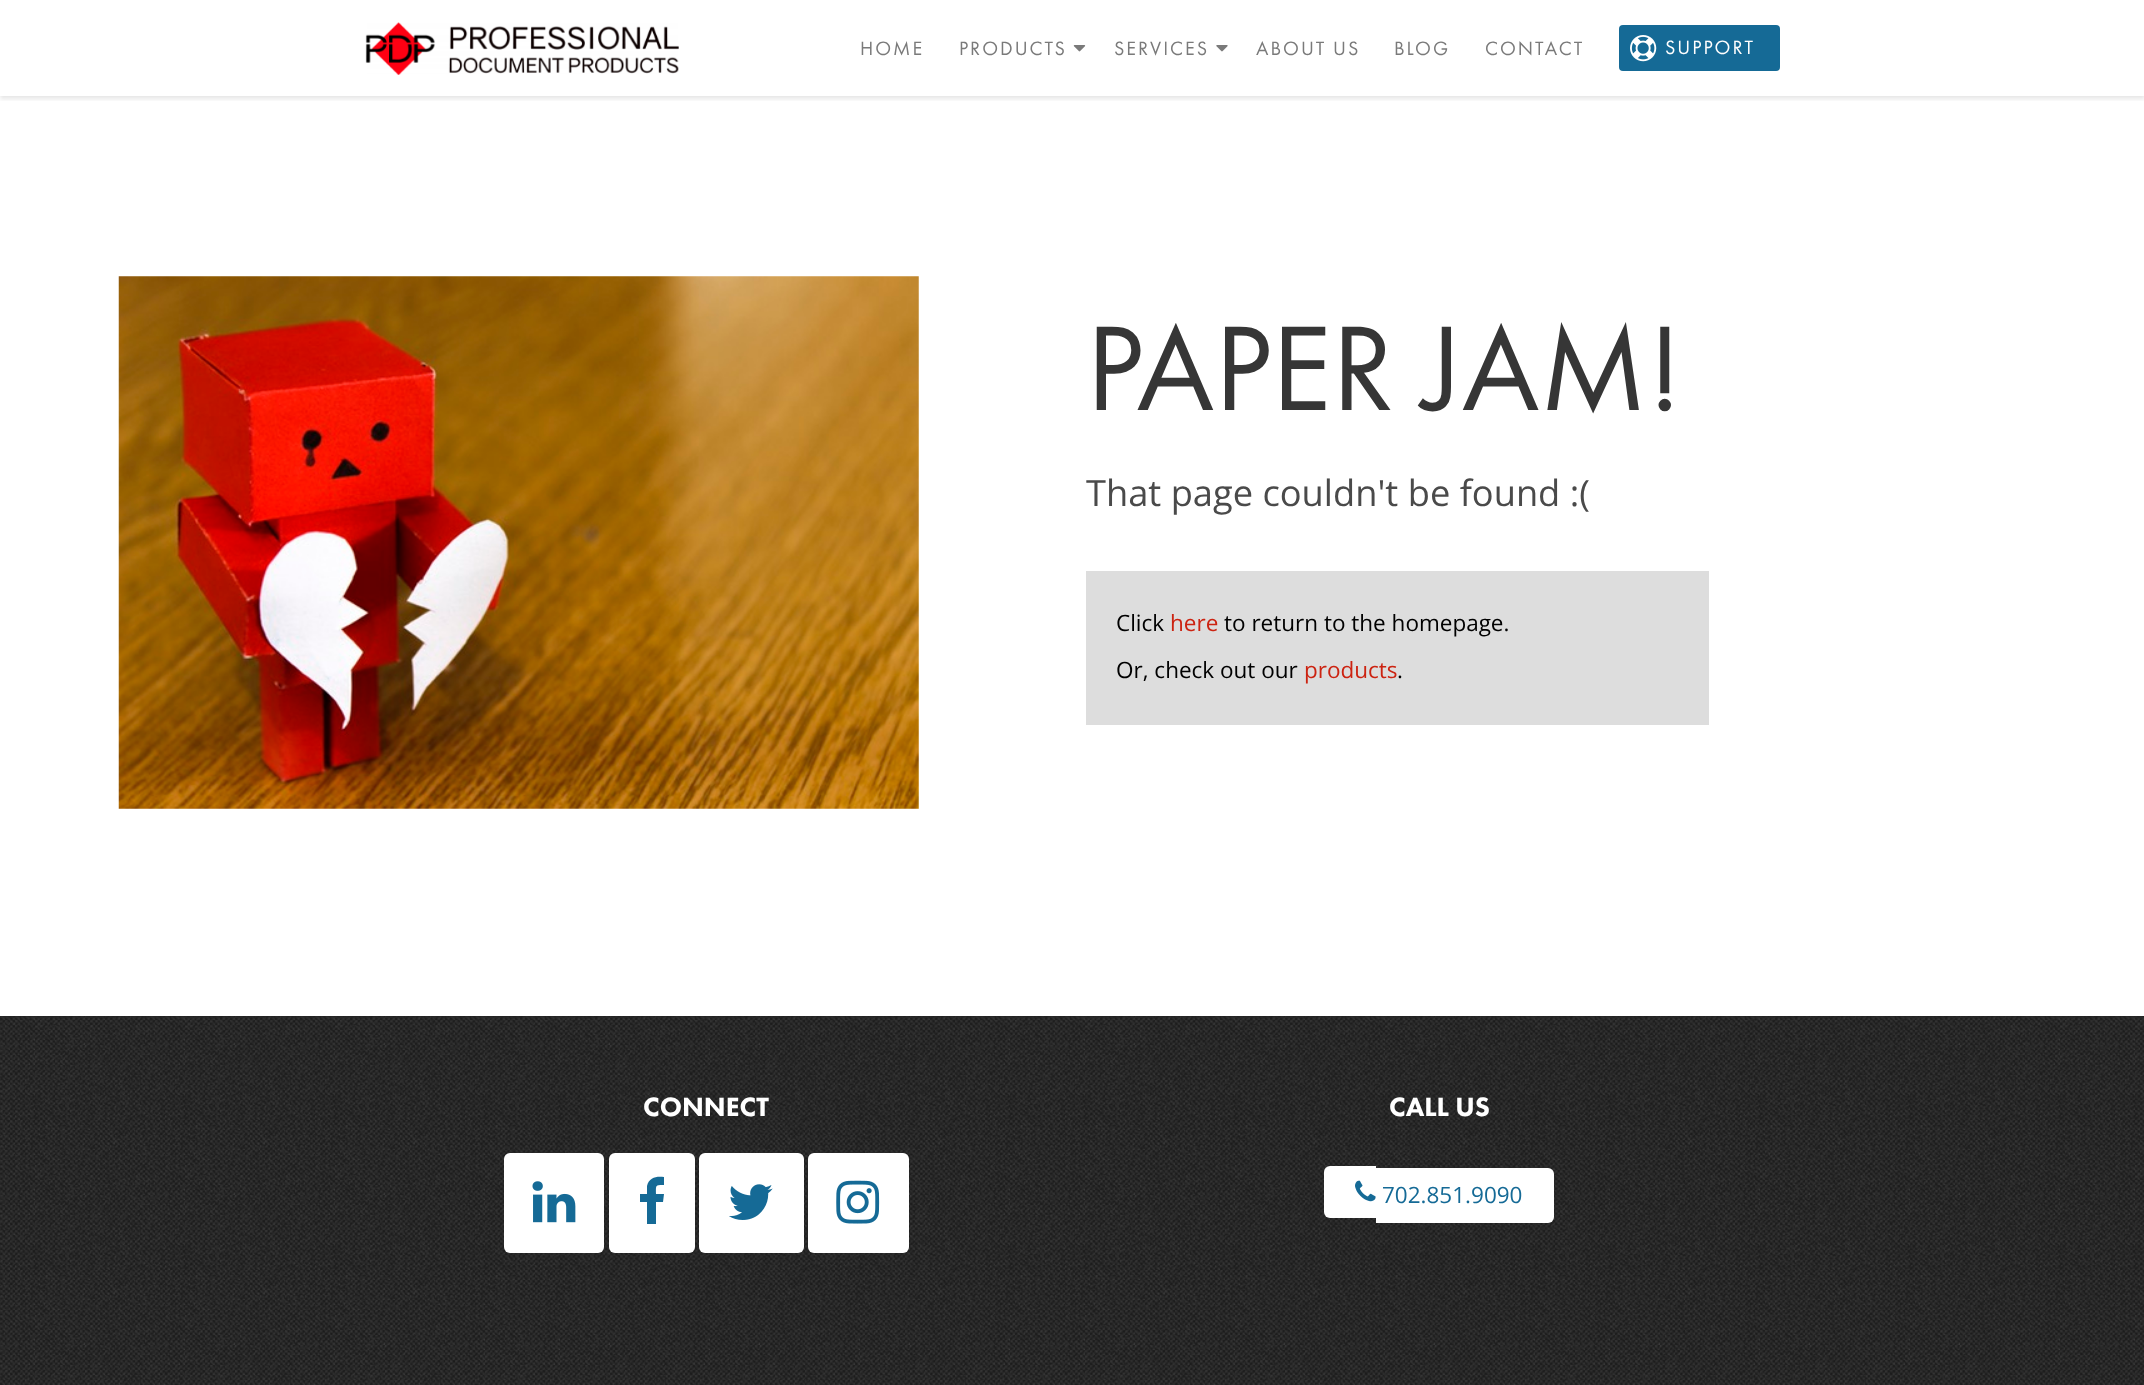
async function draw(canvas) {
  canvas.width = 2144;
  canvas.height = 1385;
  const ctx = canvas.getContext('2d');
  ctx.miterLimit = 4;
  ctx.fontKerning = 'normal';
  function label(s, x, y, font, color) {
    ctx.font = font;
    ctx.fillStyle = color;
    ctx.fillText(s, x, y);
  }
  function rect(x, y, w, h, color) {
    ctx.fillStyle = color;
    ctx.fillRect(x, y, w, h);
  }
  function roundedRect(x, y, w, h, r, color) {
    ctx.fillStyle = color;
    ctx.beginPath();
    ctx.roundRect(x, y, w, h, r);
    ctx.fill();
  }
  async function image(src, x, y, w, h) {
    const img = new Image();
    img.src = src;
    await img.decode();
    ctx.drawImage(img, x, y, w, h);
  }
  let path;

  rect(0, 0, 2144, 1385, '#fff');
  ctx.save();
  ctx.beginPath();
  ctx.rect(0, 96, 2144, 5);
  ctx.clip();
  ctx.fillStyle = '#0a0a0a1a';
  ctx.filter = 'blur(2px)';
  ctx.beginPath();
  ctx.rect(0, 3, 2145, 96);
  ctx.fill();
  ctx.filter = 'none';
  ctx.restore();
  await image('assets/img1.png', 365, 22, 314, 53);
  ctx.letterSpacing = '2px';
  label('HOME', 860, 55, '20px Futura PT', '#7a7a7a');
  label('PRODUCTS', 959, 55, '20px Futura PT', '#7a7a7a');
  await image('assets/img2.png', 1073, 45, 13, 7);
  label('SERVICES', 1114, 55, '20px Futura PT', '#7a7a7a');
  await image('assets/img3.png', 1216, 45, 12, 7);
  label('ABOUT US', 1256, 55, '20px Futura PT', '#7a7a7a');
  label('BLOG', 1394, 55, '20px Futura PT', '#7a7a7a');
  label('CONTACT', 1485, 55, '20px Futura PT', '#7a7a7a');
  roundedRect(1619, 25, 161, 46, 4, '#156a96');
  await image('assets/img4.png', 1630, 35, 27, 27);
  label('SUPPORT', 1665, 54, '20px Futura PT', '#fff');
  await image('assets/img5.png', 118, 276, 801, 533);
  ctx.letterSpacing = '0px';
  label('PAPER JAM!', 1086, 410, '125px Futura PT', '#363636');
  label('That page couldn\'t be found :(', 1086, 506, '36.25px Open Sans', '#4a4a4a');
  rect(1086, 571, 623, 154, '#ddd');
  label('Click', 1116, 631, '22.5px Open Sans', '#000');
  label('here', 1170, 631, '22.5px Open Sans', '#cc2311');
  label('to return to the homepage.', 1224, 631, '22.5px Open Sans', '#000');
  label('Or, check out our', 1116, 678, '22.5px Open Sans', '#000');
  label('products', 1304, 678, '22.5px Open Sans', '#cc2311');
  label('.', 1397, 678, '22.5px Open Sans', '#000');
  rect(0, 1016, 2144, 369, '#1d1d1d');
  await image('assets/img6.png', 0, 1016, 2144, 369);
  label('CONNECT', 643, 1116, '900 27.5px Futura PT', '#fff');
  roundedRect(504, 1153, 100, 100, 6, '#fff');
  await image('assets/img7.png', 532, 1181, 44, 42);
  roundedRect(609, 1153, 86, 100, 6, '#fff');
  ctx.fillStyle = '#156a96';
  path = new Path2D('M664 1177V1185C655 1185 656 1185 656 1194H664L663 1202H656V1224H647V1202H640V1194H647V1186C649 1177 657 1176 664 1177Z');
  ctx.fill(path);
  roundedRect(699, 1153, 105, 100, 6, '#fff');
  await image('assets/img8.png', 729, 1184, 44, 36);
  roundedRect(808, 1153, 101, 100, 6, '#fff');
  await image('assets/img9.png', 836, 1180, 44, 44);
  label('CALL US', 1389, 1116, '900 27.5px Futura PT', '#fff');
  ctx.beginPath();
  ctx.roundRect(1324, 1166, 52, 52, [6, 0, 0, 6]);
  ctx.fill();
  ctx.beginPath();
  ctx.roundRect(1376, 1168, 178, 55, [0, 6, 6, 0]);
  ctx.fill();
  await image('assets/img10.png', 1355, 1180, 21, 22);
  label('702.851.9090', 1382, 1203, '22.5px Open Sans', '#156a96');
}

draw(document.querySelector('canvas'));
